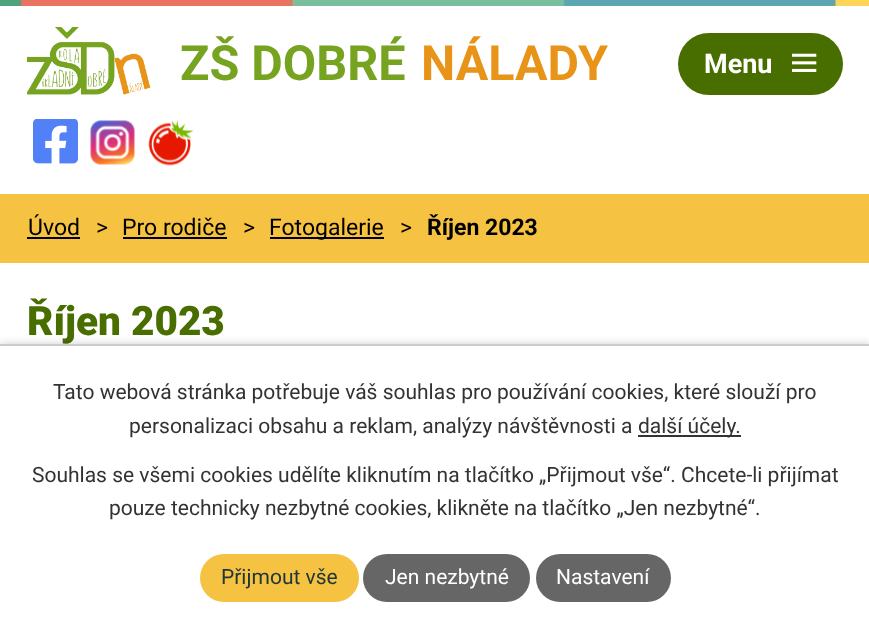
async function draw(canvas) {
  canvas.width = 869;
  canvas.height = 629;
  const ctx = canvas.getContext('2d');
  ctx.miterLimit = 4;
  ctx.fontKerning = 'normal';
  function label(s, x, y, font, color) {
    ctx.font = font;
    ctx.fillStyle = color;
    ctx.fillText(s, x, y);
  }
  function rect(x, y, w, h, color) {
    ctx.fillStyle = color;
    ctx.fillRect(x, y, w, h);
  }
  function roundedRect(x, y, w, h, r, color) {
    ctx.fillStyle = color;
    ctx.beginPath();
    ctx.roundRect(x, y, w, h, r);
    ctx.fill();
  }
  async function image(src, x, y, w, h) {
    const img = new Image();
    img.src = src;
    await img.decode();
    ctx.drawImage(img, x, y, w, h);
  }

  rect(0, 0, 869, 629, '#fff');
  await image('assets/img1.png', 0, 0, 869, 6);
  await image('assets/img2.png', 27, 27, 124, 68);
  label('ZŠ DOBRÉ', 180, 80, 'bold 48.5px Roboto', '#76a320');
  label('NÁLADY', 421, 80, 'bold 48.5px Roboto', '#e89419');
  await image('assets/img3.png', 33, 119, 45, 45);
  await image('assets/img4.png', 90, 120, 45, 45);
  await image('assets/img5.png', 148, 119, 45, 47);
  roundedRect(678, 33, 165, 62, 31, '#486e00');
  label('Menu', 704, 73, 'bold 27px Roboto', '#fff');
  await image('assets/img6.png', 792, 53, 25, 19);
  rect(0, 194, 869, 69, '#f5c242');
  label('Úvod', 28, 235, '23px Roboto', '#000');
  rect(27, 237, 53, 2, '#000');
  label('>', 96, 235, '23px Roboto', '#000');
  label('Pro rodiče', 122, 235, '23px Roboto', '#000');
  rect(123, 237, 104, 2, '#000');
  label('>', 243, 235, '23px Roboto', '#000');
  rect(270, 237, 114, 2, '#000');
  label('Fotogalerie', 269, 235, '23px Roboto', '#000');
  label('>', 400, 235, '23px Roboto', '#000');
  label('Říjen 2023', 427, 235, 'bold 23px Roboto', '#000');
  label('Říjen 2023', 27, 335, '900 40.5px Roboto', '#486e00');
  ctx.fillStyle = '#00000033';
  ctx.filter = 'blur(4px)';
  ctx.beginPath();
  ctx.rect(0, 344, 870, 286);
  ctx.fill();
  ctx.filter = 'none';
  rect(0, 346, 869, 283, '#fff');
  rect(0, 344, 869, 2, '#ccc');
  label('Tato webová stránka potřebuje váš souhlas pro používání cookies, které slouží pro', 53, 399, '21px Roboto', '#333');
  label('personalizaci obsahu a reklam, analýzy návštěvnosti a', 129, 433, '21px Roboto', '#333');
  rect(638, 435, 103, 2, '#333');
  label('další účely.', 638, 433, '21px Roboto', '#333');
  label('Souhlas se všemi cookies udělíte kliknutím na tlačítko „Přijmout vše“. Chcete-li přijímat', 32, 482, '21px Roboto', '#333');
  label('pouze technicky nezbytné cookies, klikněte na tlačítko „Jen nezbytné“.', 109, 515, '21px Roboto', '#333');
  roundedRect(200, 554, 159, 48, 24, '#f5c242');
  label('Přijmout vše', 221, 584, '21px Roboto', '#1e3539');
  roundedRect(363, 554, 167, 48, 24, '#666');
  label('Jen nezbytné', 385, 584, '21px Roboto', '#fff');
  roundedRect(536, 554, 135, 48, 24, '#666');
  label('Nastavení', 556, 584, '21px Roboto', '#fff');
}

draw(document.querySelector('canvas'));
